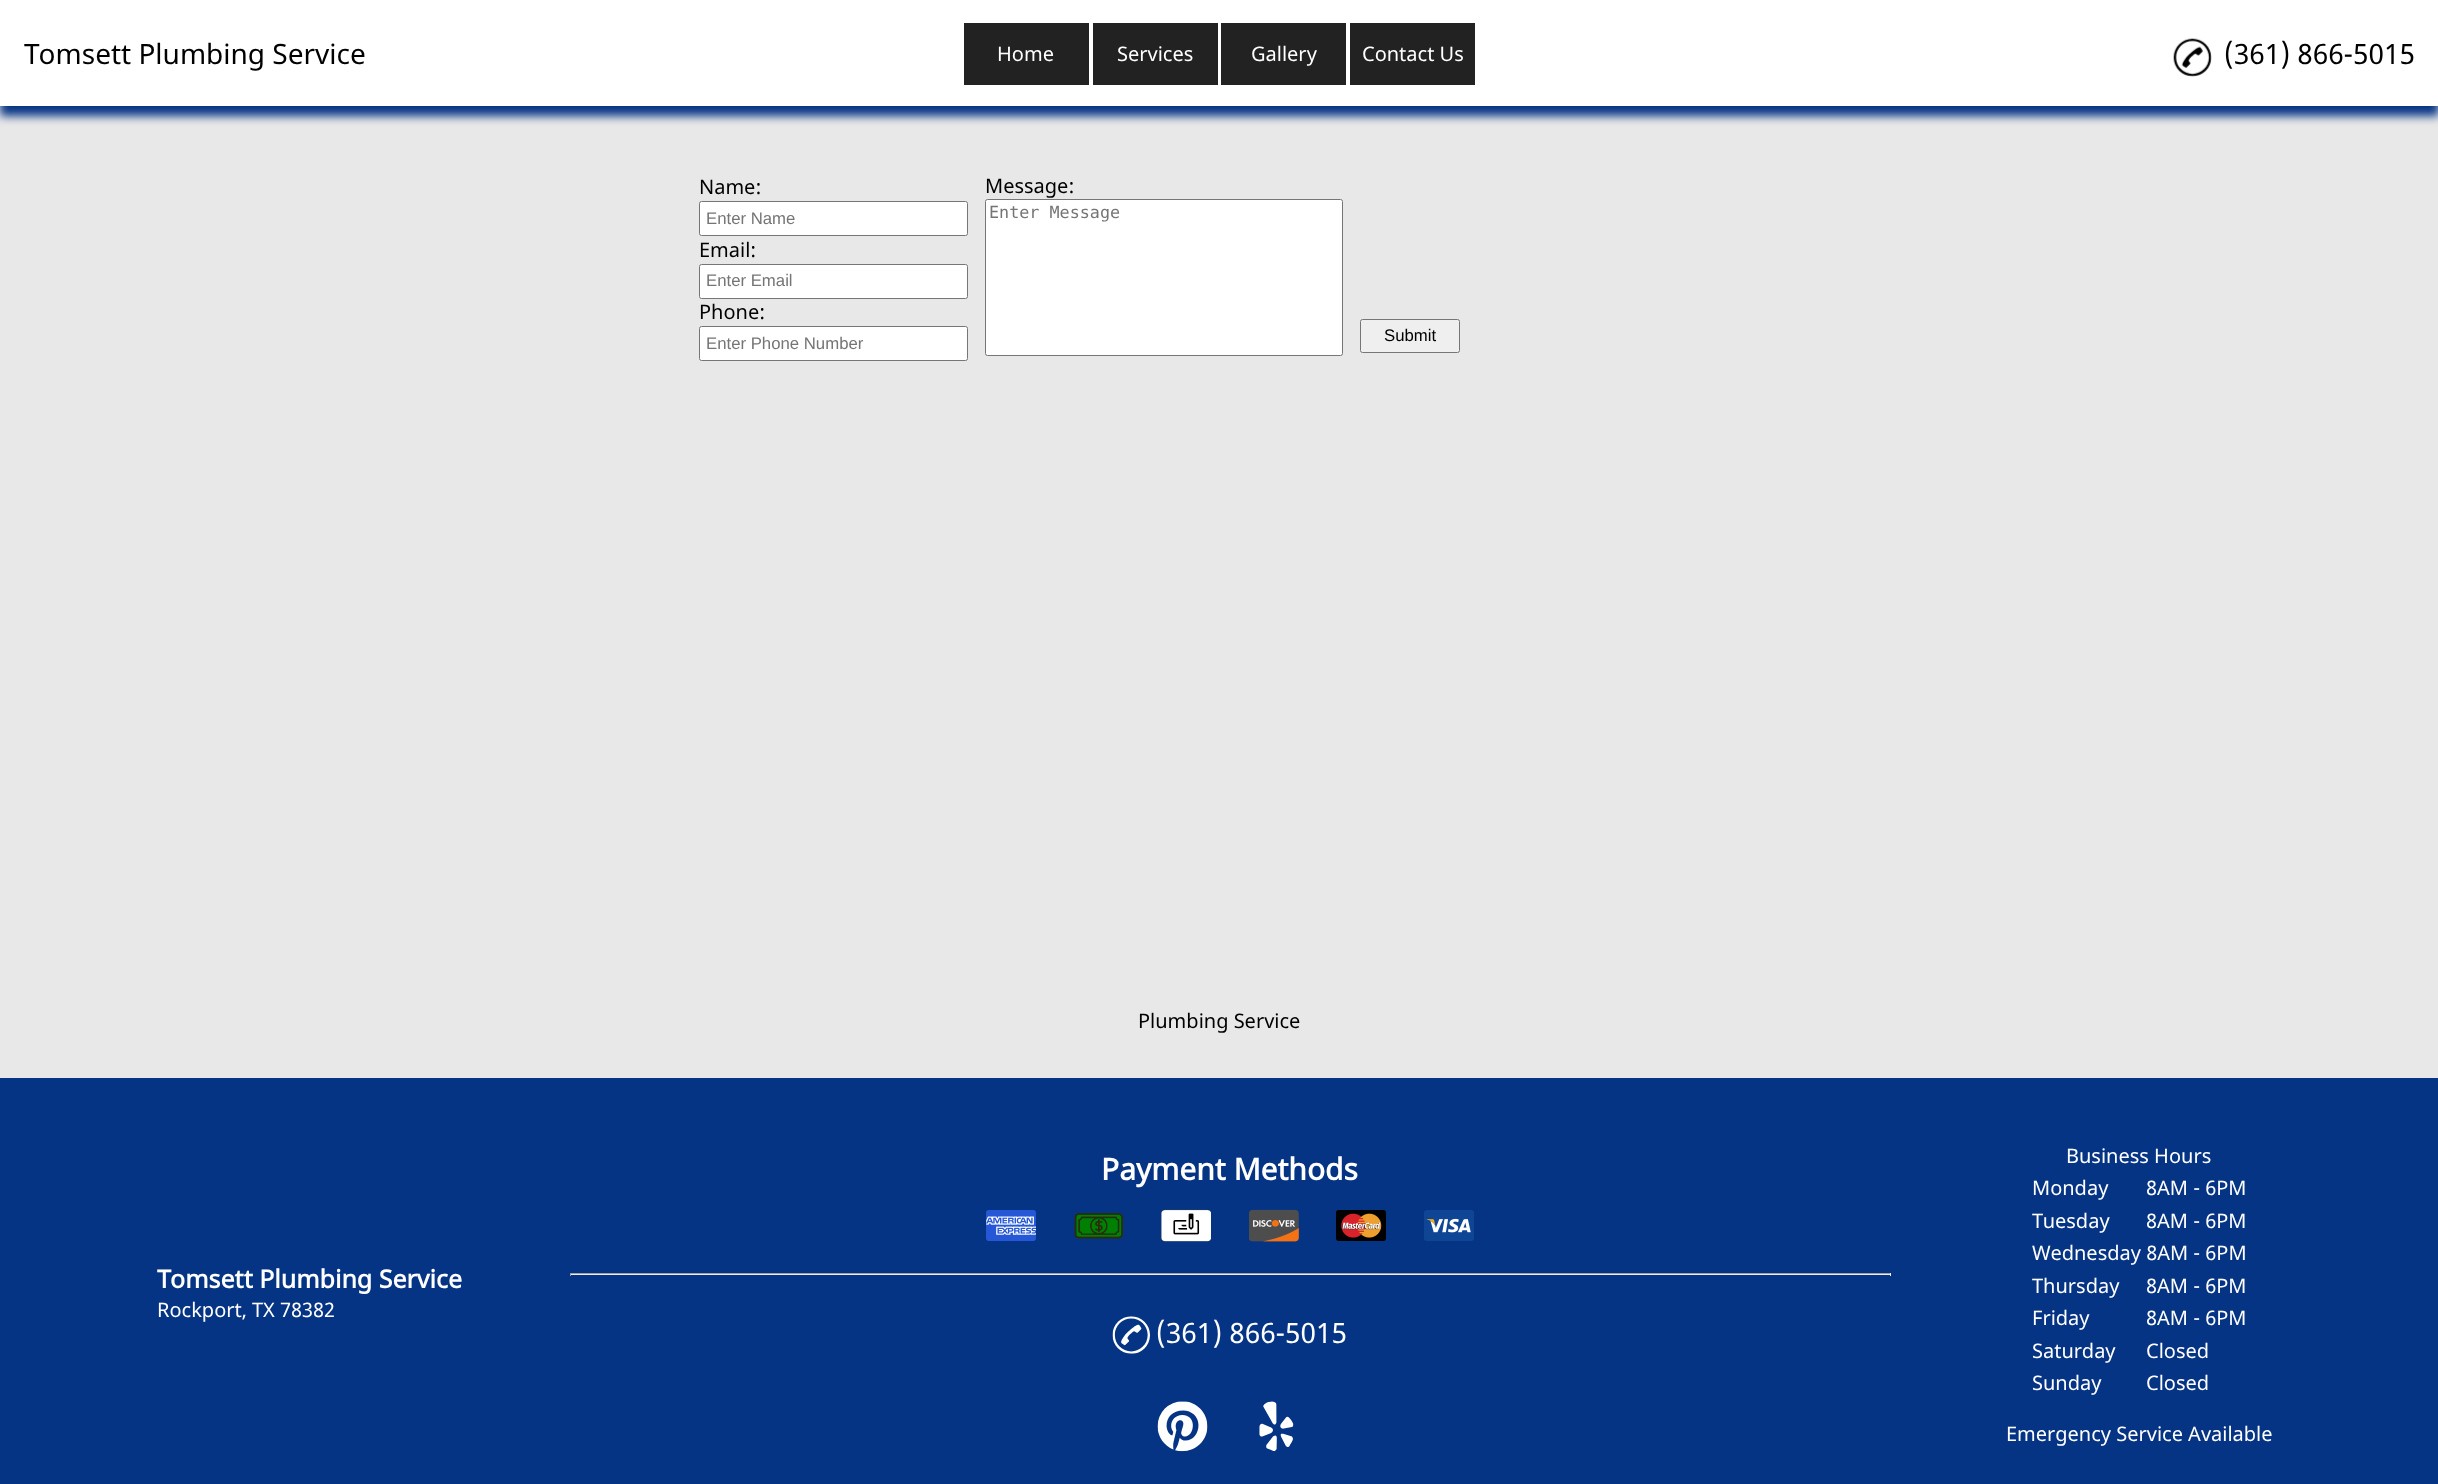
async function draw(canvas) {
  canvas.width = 2438;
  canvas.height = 1484;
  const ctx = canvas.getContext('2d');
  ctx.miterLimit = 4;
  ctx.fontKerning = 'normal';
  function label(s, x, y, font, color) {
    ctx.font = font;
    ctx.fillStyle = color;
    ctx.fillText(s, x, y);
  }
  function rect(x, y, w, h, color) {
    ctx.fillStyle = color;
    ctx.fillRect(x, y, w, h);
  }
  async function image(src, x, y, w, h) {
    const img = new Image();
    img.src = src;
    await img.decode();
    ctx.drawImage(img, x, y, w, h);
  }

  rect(0, 0, 2438, 1484, '#e8e8e8');
  ctx.fillStyle = '#063484';
  ctx.filter = 'blur(5px)';
  ctx.beginPath();
  ctx.rect(0, 10, 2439, 106);
  ctx.fill();
  ctx.filter = 'none';
  rect(0, 0, 2438, 106, '#fff');
  label('Tomsett Plumbing Service', 24, 64, '28px Noto Sans', '#000');
  rect(964, 23, 125, 62, '#222');
  label('Home', 997, 61, '20px Noto Sans', '#fff');
  rect(1093, 23, 125, 62, '#222');
  label('Services', 1117, 61, '20px Noto Sans', '#fff');
  rect(1221, 23, 125, 62, '#222');
  label('Gallery', 1251, 61, '20px Noto Sans', '#fff');
  rect(1350, 23, 125, 62, '#222');
  label('Contact Us', 1362, 61, '20px Noto Sans', '#fff');
  await image('assets/img1.png', 2173, 38, 39, 39);
  label('(361) 866-5015', 2224, 64, '28px Noto Sans', '#000');
  label('Name:', 699, 194, '20px Noto Sans', '#000');
  ctx.fillStyle = '#fff';
  ctx.beginPath();
  ctx.roundRect(699.5, 201.5, 268, 34, 2);
  ctx.fill();
  ctx.strokeStyle = '#767676';
  ctx.stroke();
  label('Enter Name', 706, 224, '16.75px Liberation Sans', '#757575');
  label('Email:', 699, 257, '20px Noto Sans', '#000');
  ctx.fillStyle = '#fff';
  ctx.beginPath();
  ctx.roundRect(699.5, 264.5, 268, 34, 2);
  ctx.fill();
  ctx.stroke();
  label('Enter Email', 706, 286, '16.75px Liberation Sans', '#757575');
  label('Phone:', 699, 319, '20px Noto Sans', '#000');
  ctx.fillStyle = '#fff';
  ctx.beginPath();
  ctx.roundRect(699.5, 326.5, 268, 34, 2);
  ctx.fill();
  ctx.stroke();
  label('Enter Phone Number', 706, 349, '16.75px Liberation Sans', '#757575');
  label('Message:', 985, 193, '20px Noto Sans', '#000');
  ctx.fillStyle = '#fff';
  ctx.beginPath();
  ctx.roundRect(985.5, 199.5, 357, 156, 2);
  ctx.fill();
  ctx.stroke();
  label('Enter Message', 989, 218, '16.75px DejaVu Sans Mono', '#757575');
  ctx.fillStyle = '#efefef';
  ctx.beginPath();
  ctx.roundRect(1360.5, 319.5, 99, 33, 2);
  ctx.fill();
  ctx.stroke();
  label('Submit', 1384, 341, '16.75px Liberation Sans', '#000');
  label('Plumbing Service', 1138, 1028, '20px Noto Sans', '#000');
  rect(0, 1078, 2438, 406, '#063484');
  label('Tomsett Plumbing Service', 157, 1288, 'bold 25px Noto Sans', '#fff');
  label('Rockport, TX 78382', 157, 1317, '20px Noto Sans', '#fff');
  label('Payment Methods', 1101, 1180, 'bold 30px Noto Sans', '#fff');
  await image('assets/img2.png', 986, 1210, 50, 31);
  await image('assets/img3.png', 1074, 1213, 49, 26);
  await image('assets/img4.png', 1161, 1209, 50, 33);
  await image('assets/img5.png', 1249, 1209, 50, 33);
  await image('assets/img6.png', 1336, 1210, 50, 31);
  await image('assets/img7.png', 1424, 1210, 50, 31);
  rect(570, 1273, 1321, 1, '#9f9f9f');
  rect(1890, 1273, 1, 3, '#eee');
  rect(570, 1274, 1321, 1, '#eee');
  rect(570, 1273, 1, 3, '#9f9f9f');
  await image('assets/img8.png', 1112, 1316, 38, 38);
  label('(361) 866-5015', 1156, 1343, '28px Noto Sans', '#fff');
  await image('assets/img9.png', 1157, 1401, 51, 51);
  await image('assets/img10.png', 1259, 1401, 35, 50);
  label('Business Hours', 2066, 1163, '20px Noto Sans', '#fff');
  label('Monday', 2032, 1195, '20px Noto Sans', '#fff');
  label('8AM - 6PM', 2146, 1195, '20px Noto Sans', '#fff');
  label('Tuesday', 2032, 1228, '20px Noto Sans', '#fff');
  label('8AM - 6PM', 2146, 1228, '20px Noto Sans', '#fff');
  label('Wednesday 8AM - 6PM', 2032, 1260, '20px Noto Sans', '#fff');
  label('Thursday', 2032, 1293, '20px Noto Sans', '#fff');
  label('8AM - 6PM', 2146, 1293, '20px Noto Sans', '#fff');
  label('Friday', 2032, 1325, '20px Noto Sans', '#fff');
  label('8AM - 6PM', 2146, 1325, '20px Noto Sans', '#fff');
  label('Saturday', 2032, 1358, '20px Noto Sans', '#fff');
  label('Closed', 2146, 1358, '20px Noto Sans', '#fff');
  label('Sunday', 2032, 1390, '20px Noto Sans', '#fff');
  label('Closed', 2146, 1390, '20px Noto Sans', '#fff');
  label('Emergency Service Available', 2006, 1441, '20px Noto Sans', '#fff');
}

draw(document.querySelector('canvas'));
